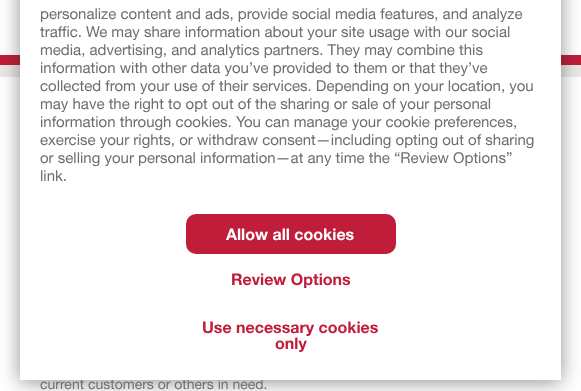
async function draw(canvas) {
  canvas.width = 581;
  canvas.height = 391;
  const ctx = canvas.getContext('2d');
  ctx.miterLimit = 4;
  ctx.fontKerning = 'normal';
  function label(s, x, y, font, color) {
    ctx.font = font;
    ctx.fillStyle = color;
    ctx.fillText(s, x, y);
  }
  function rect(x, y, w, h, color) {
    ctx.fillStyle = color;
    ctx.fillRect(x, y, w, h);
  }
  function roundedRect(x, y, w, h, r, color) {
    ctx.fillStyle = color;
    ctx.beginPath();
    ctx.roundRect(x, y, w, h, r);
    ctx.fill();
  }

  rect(0, 0, 581, 391, '#fff');
  rect(0, 55, 581, 10, '#bf1e39');
  rect(0, 65, 581, 12, '#ebe9e8');
  ctx.fillStyle = '#21212180';
  ctx.filter = 'blur(10px)';
  ctx.beginPath();
  ctx.rect(20, -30, 541, 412);
  ctx.fill();
  ctx.filter = 'none';
  label('current customers or others in need.', 40, 389, '14px "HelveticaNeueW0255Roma"', '#6d6e71');
  rect(20, 0, 541, 380, '#fff');
  label('personalize content and ads, provide social media features, and analyze', 40, 19, '15px "HelveticaNeueW0255Roma"', '#6d6e71');
  label('traffic. We may share information about your site usage with our social', 40, 37, '15px "HelveticaNeueW0255Roma"', '#6d6e71');
  label('media, advertising, and analytics partners. They may combine this', 40, 55, '15px "HelveticaNeueW0255Roma"', '#6d6e71');
  label('information with other data you’ve provided to them or that they’ve', 40, 73, '15px "HelveticaNeueW0255Roma"', '#6d6e71');
  label('collected from your use of their services. Depending on your location, you', 40, 91, '15px "HelveticaNeueW0255Roma"', '#6d6e71');
  label('may have the right to opt out of the sharing or sale of your personal', 40, 109, '15px "HelveticaNeueW0255Roma"', '#6d6e71');
  label('information through cookies. You can manage your cookie preferences,', 40, 127, '15px "HelveticaNeueW0255Roma"', '#6d6e71');
  label('exercise your rights, or withdraw consent—including opting out of sharing', 40, 145, '15px "HelveticaNeueW0255Roma"', '#6d6e71');
  label('or selling your personal information—at any time the “Review Options”', 40, 163, '15px "HelveticaNeueW0255Roma"', '#6d6e71');
  label('link.', 40, 181, '15px "HelveticaNeueW0255Roma"', '#6d6e71');
  roundedRect(186, 214, 210, 40, 10, '#bf1d39');
  label('Allow all cookies', 226, 240, 'bold 16px "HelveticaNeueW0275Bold"', '#fff');
  label('Review Options', 231, 285, 'bold 16px "HelveticaNeueW0275Bold"', '#bf1d39');
  label('Use necessary cookies', 202, 333, 'bold 16px "HelveticaNeueW0275Bold"', '#bf1d39');
  label('only', 275, 349, 'bold 16px "HelveticaNeueW0275Bold"', '#bf1d39');
}

draw(document.querySelector('canvas'));
